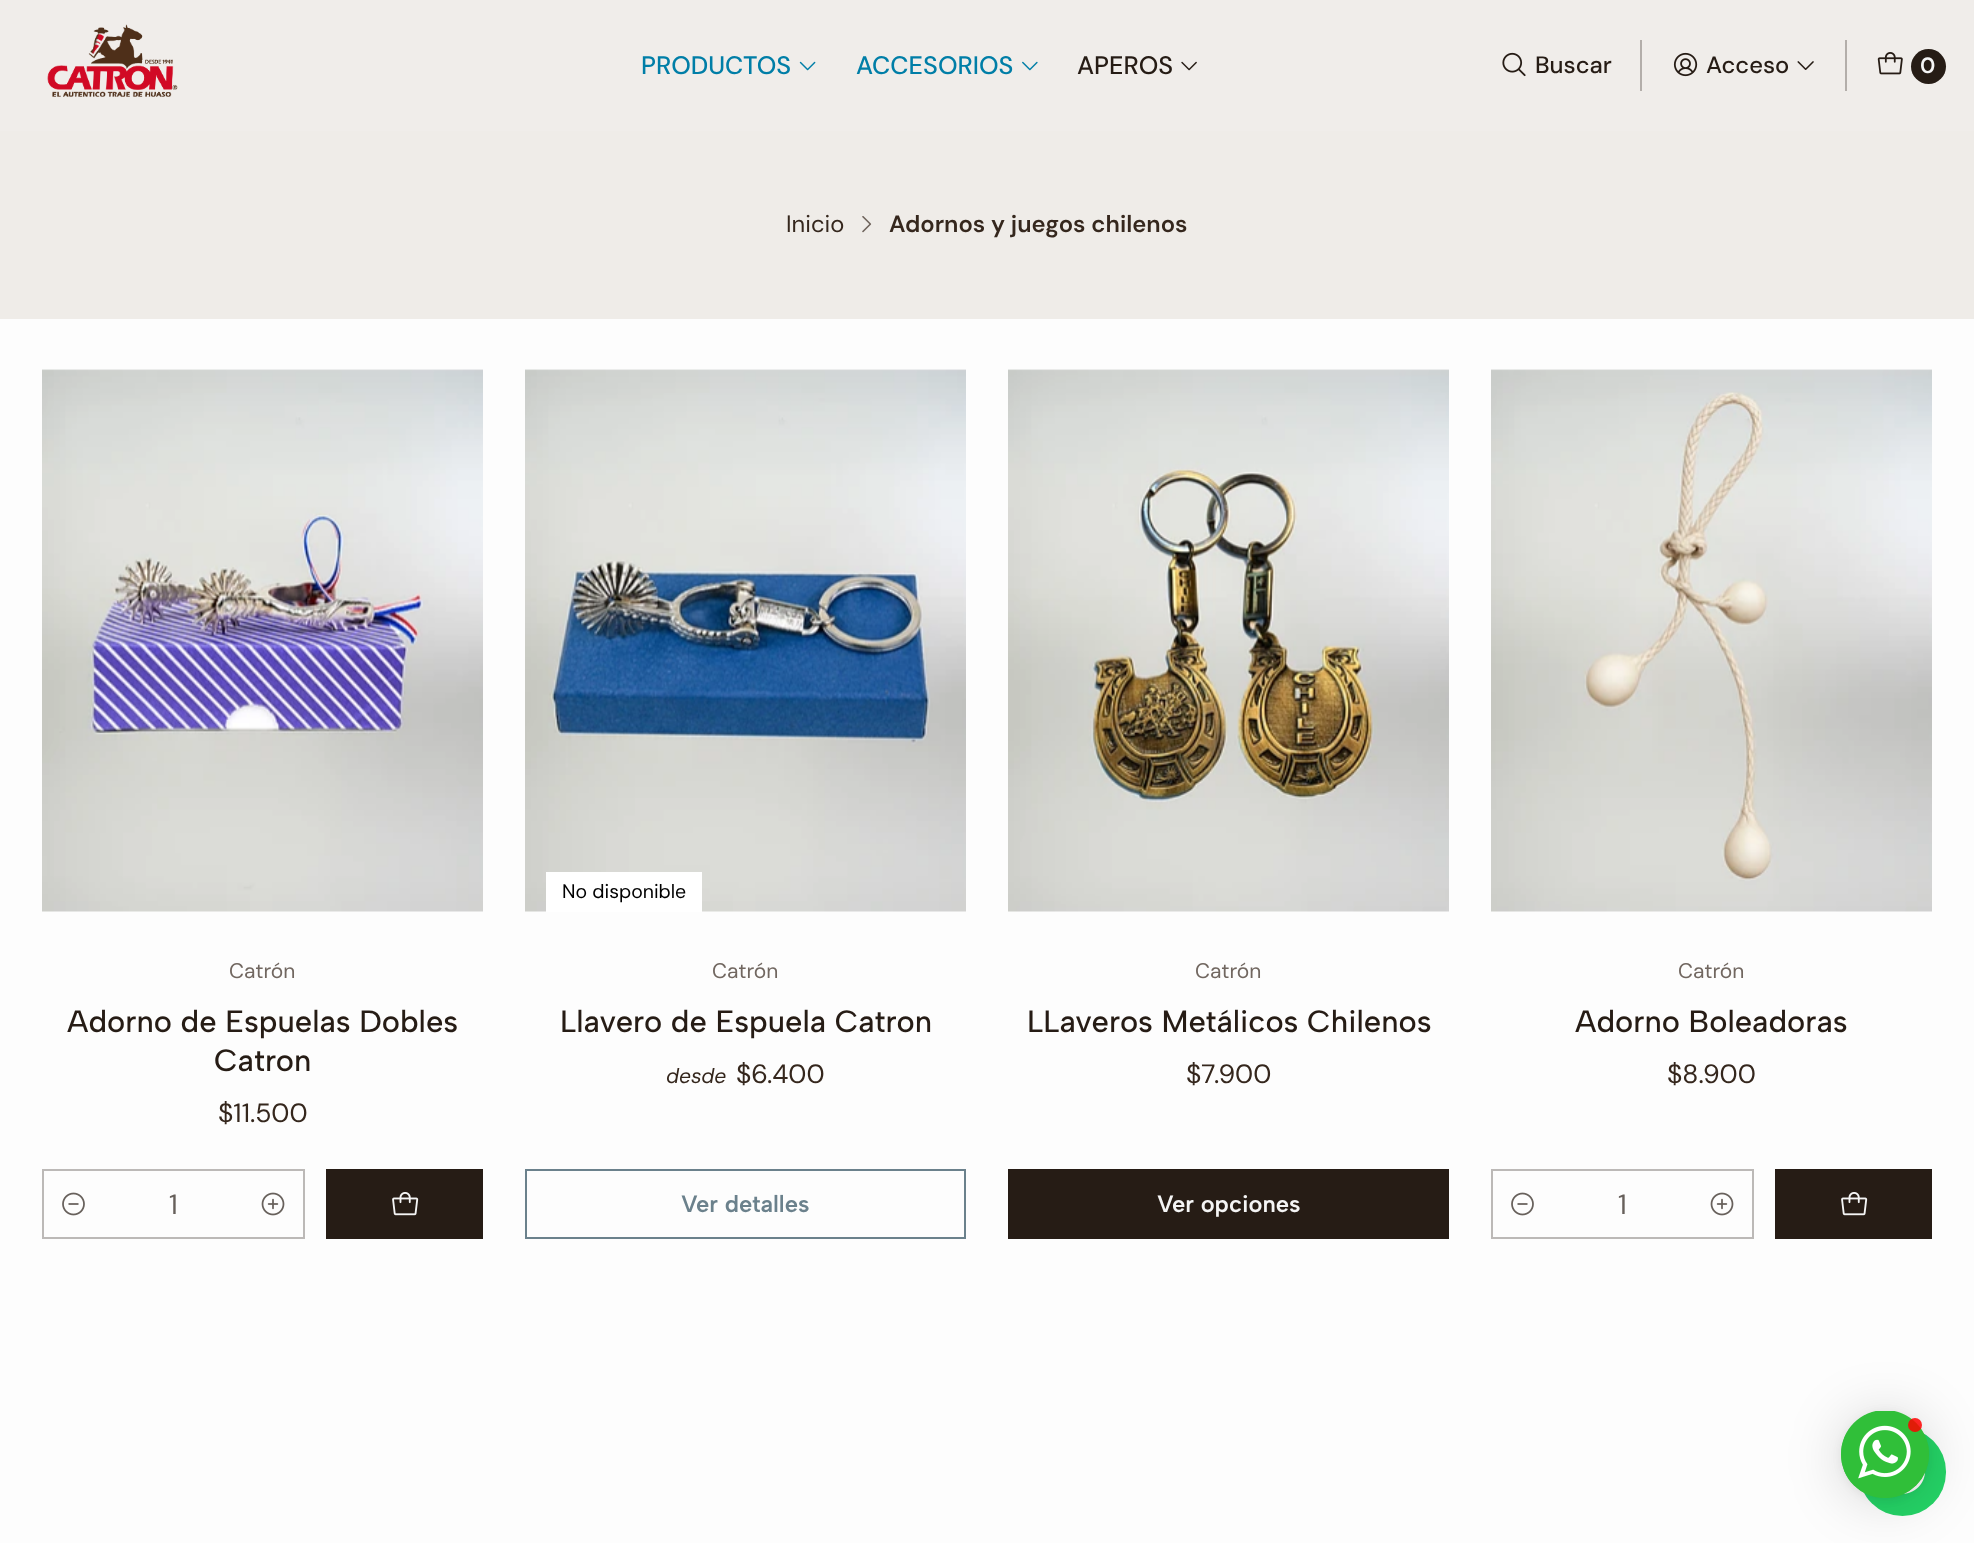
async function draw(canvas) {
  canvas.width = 1974;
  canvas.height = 1543;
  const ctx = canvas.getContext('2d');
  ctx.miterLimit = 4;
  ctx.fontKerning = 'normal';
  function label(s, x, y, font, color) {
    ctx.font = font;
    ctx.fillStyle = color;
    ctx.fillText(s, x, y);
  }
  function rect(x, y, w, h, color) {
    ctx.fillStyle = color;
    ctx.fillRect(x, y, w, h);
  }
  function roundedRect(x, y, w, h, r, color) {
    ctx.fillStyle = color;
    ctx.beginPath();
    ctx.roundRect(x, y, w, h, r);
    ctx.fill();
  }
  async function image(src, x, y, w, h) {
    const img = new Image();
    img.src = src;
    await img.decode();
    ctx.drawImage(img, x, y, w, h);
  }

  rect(0, 0, 1974, 1543, '#fdfdfd');
  rect(0, 0, 1974, 131, '#f0edea');
  await image('assets/img1.png', 47, 24, 131, 73);
  label('PRODUCTOS', 641, 74, '500 25.25px DM Sans', '#007ea7');
  await image('assets/img2.png', 799, 61, 17, 10);
  label('ACCESORIOS', 856, 74, '500 25.25px DM Sans', '#007ea7');
  await image('assets/img3.png', 1022, 61, 16, 10);
  label('APEROS', 1077, 74, '500 25.25px DM Sans', '#261c15');
  await image('assets/img4.png', 1181, 61, 16, 10);
  rect(1640, 40, 2, 51, '#b3aeaa');
  await image('assets/img5.png', 1502, 52, 24, 25);
  label('Buscar', 1535, 73, '500 23.75px DM Sans', '#261c15');
  rect(1845, 40, 2, 51, '#b3aeaa');
  await image('assets/img6.png', 1673, 52, 25, 25);
  label('Acceso', 1706, 73, '500 23.75px DM Sans', '#261c15');
  await image('assets/img7.png', 1797, 61, 17, 9);
  await image('assets/img8.png', 1877, 52, 26, 23);
  ctx.beginPath();
  ctx.arc(1928.5, 66.5, 17.5, 0, 2 * Math.PI);
  ctx.fill();
  label('0', 1920, 73, '600 22px DM Sans', '#f5f5f5');
  rect(0, 131, 1974, 188, '#efece8');
  label('Inicio', 786, 232, '23.75px DM Sans', '#35271d');
  await image('assets/img9.png', 862, 216, 10, 17);
  label('Adornos y juegos chilenos', 889, 232, '600 23.75px DM Sans', '#35271d');
  await image('assets/img10.png', 42, 369, 441, 543);
  label('Catrón', 229, 978, '21px DM Sans', '#716760');
  label('Adorno de Espuelas Dobles', 67, 1032, '500 30.9px Albert Sans', '#261c15');
  label('Catron', 214, 1071, '500 30.9px Albert Sans', '#261c15');
  label('$11.500', 218, 1122, '26.5px DM Sans', '#35271d');
  ctx.strokeStyle = '#bcb9b7';
  ctx.lineWidth = 2;
  ctx.strokeRect(43, 1170, 261, 68);
  await image('assets/img11.png', 62, 1192, 23, 24);
  label('1', 169, 1214, '28px DM Sans', '#67605b');
  await image('assets/img12.png', 261, 1192, 24, 24);
  rect(326, 1169, 157, 70, '#261c15');
  await image('assets/img13.png', 392, 1192, 27, 24);
  await image('assets/img14.png', 525, 369, 441, 543);
  rect(546, 872, 156, 40, '#fff');
  label('No disponible', 562, 898, '19.5px DM Sans', '#000');
  label('Catrón', 712, 978, '21px DM Sans', '#716760');
  label('Llavero de Espuela Catron', 560, 1032, '500 30.9px Albert Sans', '#261c15');
  label('desde', 666, 1083, 'italic 21px DM Sans', '#35271d');
  label('$6.400', 736, 1083, '26.5px DM Sans', '#35271d');
  ctx.strokeStyle = '#6b818c';
  ctx.strokeRect(526, 1170, 439, 68);
  label('Ver detalles', 681, 1212, '600 23.75px Albert Sans', '#6b818c');
  await image('assets/img15.png', 1008, 369, 441, 543);
  label('Catrón', 1195, 978, '21px DM Sans', '#716760');
  label('LLaveros Metálicos Chilenos', 1027, 1032, '500 30.9px Albert Sans', '#261c15');
  label('$7.900', 1186, 1083, '26.5px DM Sans', '#35271d');
  rect(1008, 1169, 441, 70, '#261c15');
  label('Ver opciones', 1157, 1212, '600 23.75px Albert Sans', '#f5f5f5');
  await image('assets/img16.png', 1491, 369, 441, 543);
  label('Catrón', 1678, 978, '21px DM Sans', '#716760');
  label('Adorno Boleadoras', 1575, 1032, '500 30.9px Albert Sans', '#261c15');
  label('$8.900', 1667, 1083, '26.5px DM Sans', '#35271d');
  ctx.strokeStyle = '#bcb9b7';
  ctx.strokeRect(1492, 1170, 261, 68);
  await image('assets/img11.png', 1511, 1192, 23, 24);
  label('1', 1618, 1214, '28px DM Sans', '#67605b');
  await image('assets/img12.png', 1710, 1192, 24, 24);
  rect(1775, 1169, 157, 70, '#261c15');
  await image('assets/img13.png', 1841, 1192, 27, 24);
  roundedRect(1859, 1428, 87, 88, 43.5, '#25d366');
  await image('assets/img18.png', 1903, 1472, 22, 22);
  ctx.fillStyle = '#00000029';
  ctx.filter = 'blur(28px)';
  ctx.beginPath();
  ctx.roundRect(1841, 1414, 88, 88, 44);
  ctx.fill();
  ctx.filter = 'none';
  ctx.fillStyle = '#0000000f';
  ctx.filter = 'blur(5px)';
  ctx.beginPath();
  ctx.roundRect(1841, 1412, 88, 88, 44);
  ctx.fill();
  ctx.filter = 'none';
  roundedRect(1841, 1411, 88, 87, 43.5, '#30bf39');
  await image('assets/img17.png', 1841, 1411, 88, 87);
  ctx.fillStyle = '#ff0000d9';
  ctx.beginPath();
  ctx.arc(1915, 1425, 7, 0, 2 * Math.PI);
  ctx.fill();
}

draw(document.querySelector('canvas'));
